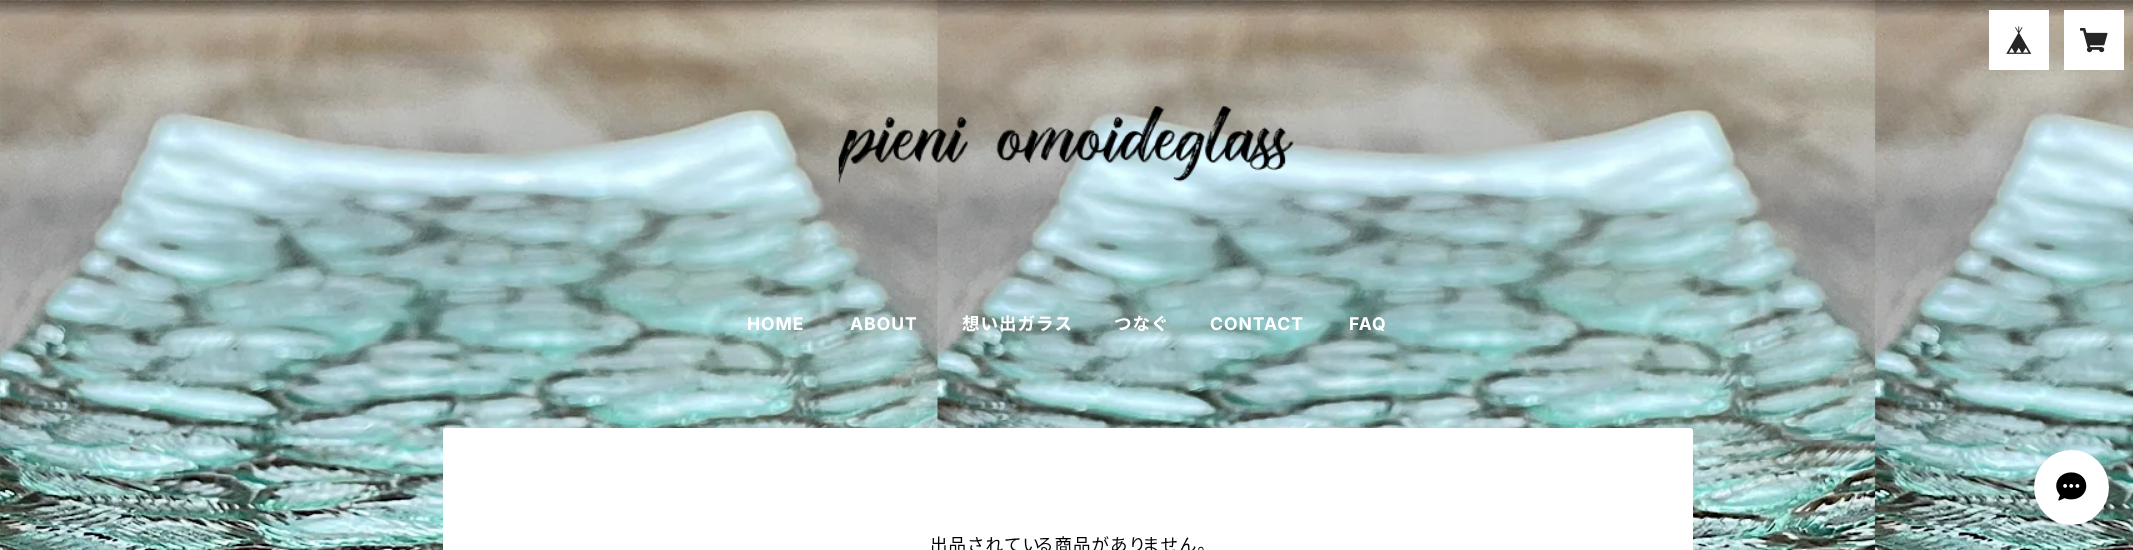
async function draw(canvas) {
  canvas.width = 2133;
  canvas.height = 550;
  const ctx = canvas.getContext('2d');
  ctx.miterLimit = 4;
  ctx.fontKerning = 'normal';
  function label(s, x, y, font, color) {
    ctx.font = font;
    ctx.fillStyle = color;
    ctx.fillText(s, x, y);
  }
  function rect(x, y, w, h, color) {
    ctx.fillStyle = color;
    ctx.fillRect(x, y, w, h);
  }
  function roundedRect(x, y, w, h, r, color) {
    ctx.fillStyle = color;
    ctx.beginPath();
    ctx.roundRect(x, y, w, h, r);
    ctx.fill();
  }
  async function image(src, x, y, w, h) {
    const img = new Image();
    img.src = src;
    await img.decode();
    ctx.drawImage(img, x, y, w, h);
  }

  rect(0, 0, 2133, 550, '#fff');
  await image('assets/img1.png', 0, 0, 2133, 550);
  rect(1989, 10, 60, 60, '#fff');
  await image('assets/img2.png', 2006, 26, 26, 28);
  rect(2064, 10, 60, 60, '#fff');
  await image('assets/img3.png', 2080, 28, 28, 25);
  await image('assets/img4.png', 838, 105, 456, 79);
  ctx.letterSpacing = '1px';
  label('HOME', 747, 330, 'bold 17.5px Inter', '#fff');
  label('ABOUT', 850, 330, 'bold 17.5px Inter', '#fff');
  label('想い出ガラス', 962, 330, 'bold 17.5px Noto Sans JP', '#fff');
  label('つなぐ', 1114, 330, 'bold 17.5px Noto Sans JP', '#fff');
  label('CONTACT', 1210, 330, 'bold 17.5px Inter', '#fff');
  label('FAQ', 1349, 330, 'bold 17.5px Inter', '#fff');
  roundedRect(443, 428, 1250, 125, 2.5, '#fff');
  label('出品されてい', 930, 551, '17.5px Noto Sans JP', '#000');
  label('る商品があり', 1036, 551, '17.5px Noto Sans JP', '#000');
  label('ません。', 1142, 551, '17.5px Noto Sans JP', '#000');
  ctx.fillStyle = '#33425833';
  ctx.filter = 'blur(9.5px)';
  ctx.beginPath();
  ctx.roundRect(2034, 450, 75, 75, 37.5);
  ctx.fill();
  ctx.filter = 'none';
  ctx.fillStyle = '#fff';
  ctx.beginPath();
  ctx.arc(2071.5, 487.5, 37.5, 0, 2 * Math.PI);
  ctx.fill();
  await image('assets/img5.png', 2056, 472, 31, 29);
}

draw(document.querySelector('canvas'));
